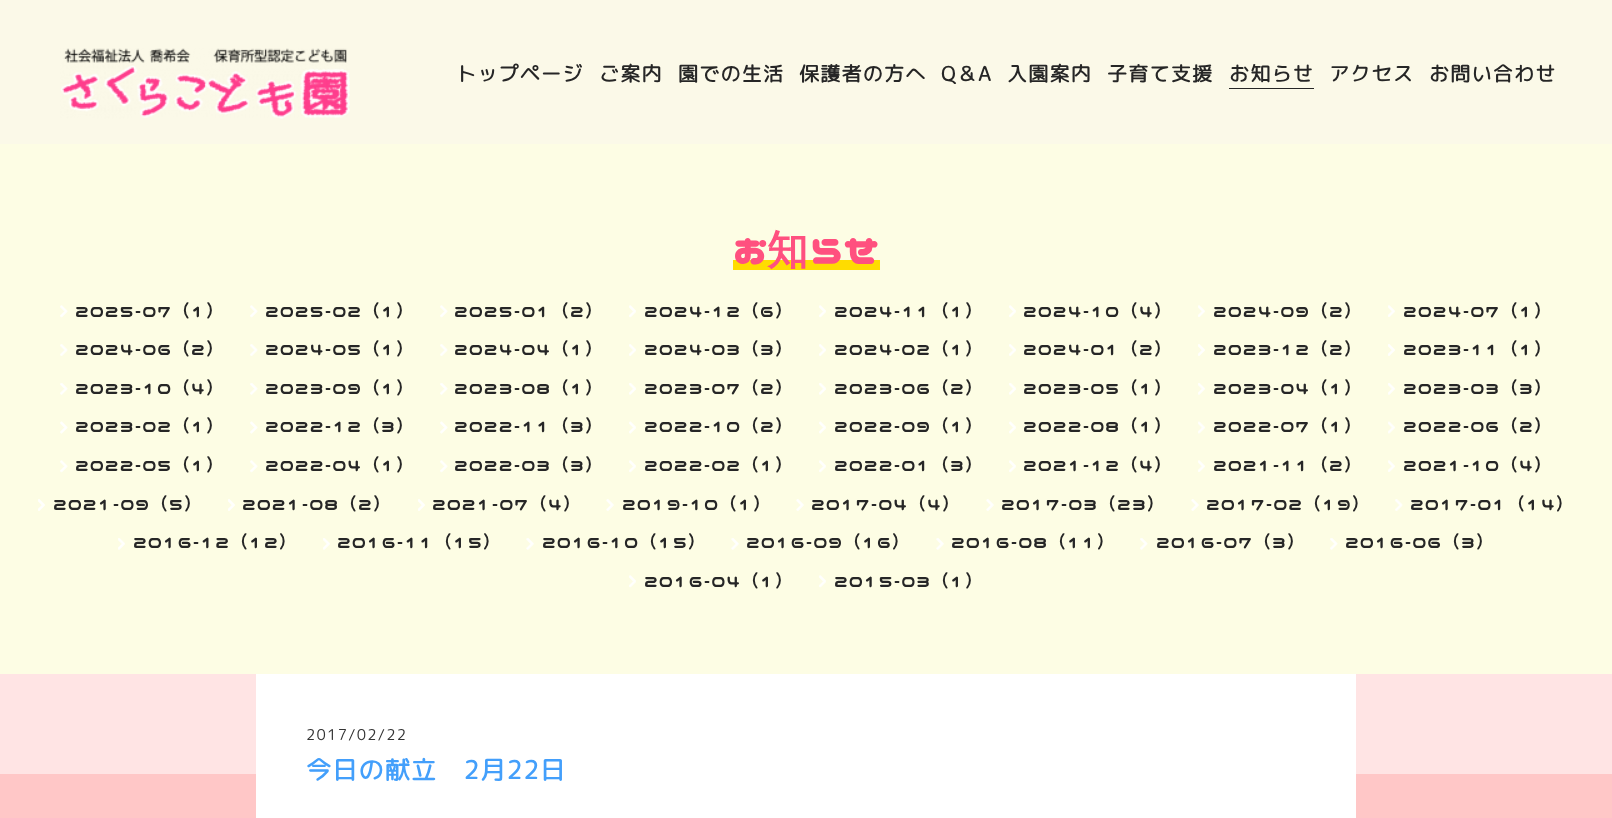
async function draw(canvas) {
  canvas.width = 1612;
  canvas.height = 818;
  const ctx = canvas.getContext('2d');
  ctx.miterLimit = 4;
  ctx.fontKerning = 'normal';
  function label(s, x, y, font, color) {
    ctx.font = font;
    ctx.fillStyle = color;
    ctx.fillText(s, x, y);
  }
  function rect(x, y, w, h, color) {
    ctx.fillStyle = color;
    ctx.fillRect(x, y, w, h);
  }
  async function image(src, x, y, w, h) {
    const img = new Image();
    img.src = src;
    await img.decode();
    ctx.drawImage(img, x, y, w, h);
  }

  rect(0, 0, 1612, 818, '#fdfde4');
  rect(0, 0, 1612, 144, '#fbf9e8');
  await image('assets/img1.png', 60, 48, 290, 71);
  ctx.letterSpacing = '1.25px';
  label('トップページ', 456, 81, 'bold 20px "Rounded Mplus 1c"', '#262626');
  label('ご案内', 599, 81, 'bold 20px "Rounded Mplus 1c"', '#262626');
  label('園での生活', 678, 81, 'bold 20px "Rounded Mplus 1c"', '#262626');
  label('保護者の方へ', 799, 81, 'bold 20px "Rounded Mplus 1c"', '#262626');
  label('Q＆A', 941, 81, 'bold 20px "Rounded Mplus 1c"', '#262626');
  label('入園案内', 1007, 81, 'bold 20px "Rounded Mplus 1c"', '#262626');
  label('子育て支援', 1107, 81, 'bold 20px "Rounded Mplus 1c"', '#262626');
  label('お知らせ', 1229, 81, 'bold 20px "Rounded Mplus 1c"', '#262626');
  rect(1229, 88, 85, 1, '#262626');
  label('アクセス', 1329, 81, 'bold 20px "Rounded Mplus 1c"', '#262626');
  label('お問い合わせ', 1429, 81, 'bold 20px "Rounded Mplus 1c"', '#262626');
  rect(733, 260, 147, 10, '#ffdc00');
  label('お', 733, 264, 'bold 41px Nico Moji', '#ff507f');
  label('知', 767, 264, 'bold 41px WenQuanYi Zen Hei', '#ff507f');
  label('らせ', 810, 264, 'bold 41px Nico Moji', '#ff507f');
  await image('assets/img2.png', 60, 305, 8, 13);
  label('2025-07（1）', 75, 317, '17.5px Nico Moji', '#262626');
  await image('assets/img2.png', 250, 305, 8, 13);
  label('2025-02（1）', 265, 317, '17.5px Nico Moji', '#262626');
  await image('assets/img2.png', 440, 305, 8, 13);
  label('2025-01（2）', 454, 317, '17.5px Nico Moji', '#262626');
  await image('assets/img3.png', 629, 305, 7, 13);
  label('2024-12（6）', 644, 317, '17.5px Nico Moji', '#262626');
  await image('assets/img3.png', 819, 305, 7, 13);
  label('2024-11（1）', 834, 317, '17.5px Nico Moji', '#262626');
  await image('assets/img3.png', 1009, 305, 7, 13);
  label('2024-10（4）', 1023, 317, '17.5px Nico Moji', '#262626');
  await image('assets/img4.png', 1198, 305, 7, 12);
  label('2024-09（2）', 1213, 317, '17.5px Nico Moji', '#262626');
  await image('assets/img4.png', 1388, 305, 7, 12);
  label('2024-07（1）', 1403, 317, '17.5px Nico Moji', '#262626');
  await image('assets/img5.png', 60, 344, 8, 12);
  label('2024-06（2）', 75, 355, '17.5px Nico Moji', '#262626');
  await image('assets/img5.png', 250, 344, 8, 12);
  label('2024-05（1）', 265, 355, '17.5px Nico Moji', '#262626');
  await image('assets/img5.png', 440, 344, 8, 12);
  label('2024-04（1）', 454, 355, '17.5px Nico Moji', '#262626');
  await image('assets/img6.png', 629, 344, 7, 12);
  label('2024-03（3）', 644, 355, '17.5px Nico Moji', '#262626');
  await image('assets/img6.png', 819, 344, 7, 12);
  label('2024-02（1）', 834, 355, '17.5px Nico Moji', '#262626');
  await image('assets/img6.png', 1009, 344, 7, 12);
  label('2024-01（2）', 1023, 355, '17.5px Nico Moji', '#262626');
  await image('assets/img7.png', 1198, 344, 7, 12);
  label('2023-12（2）', 1213, 355, '17.5px Nico Moji', '#262626');
  await image('assets/img7.png', 1388, 344, 7, 12);
  label('2023-11（1）', 1403, 355, '17.5px Nico Moji', '#262626');
  await image('assets/img8.png', 60, 383, 8, 12);
  label('2023-10（4）', 75, 394, '17.5px Nico Moji', '#262626');
  await image('assets/img8.png', 250, 383, 8, 12);
  label('2023-09（1）', 265, 394, '17.5px Nico Moji', '#262626');
  await image('assets/img8.png', 440, 383, 8, 12);
  label('2023-08（1）', 454, 394, '17.5px Nico Moji', '#262626');
  await image('assets/img9.png', 629, 383, 7, 12);
  label('2023-07（2）', 644, 394, '17.5px Nico Moji', '#262626');
  await image('assets/img9.png', 819, 383, 7, 12);
  label('2023-06（2）', 834, 394, '17.5px Nico Moji', '#262626');
  await image('assets/img9.png', 1009, 383, 7, 12);
  label('2023-05（1）', 1023, 394, '17.5px Nico Moji', '#262626');
  await image('assets/img10.png', 1198, 383, 7, 12);
  label('2023-04（1）', 1213, 394, '17.5px Nico Moji', '#262626');
  await image('assets/img10.png', 1388, 383, 7, 12);
  label('2023-03（3）', 1403, 394, '17.5px Nico Moji', '#262626');
  await image('assets/img11.png', 60, 421, 8, 13);
  label('2023-02（1）', 75, 432, '17.5px Nico Moji', '#262626');
  await image('assets/img11.png', 250, 421, 8, 13);
  label('2022-12（3）', 265, 432, '17.5px Nico Moji', '#262626');
  await image('assets/img11.png', 440, 421, 8, 13);
  label('2022-11（3）', 454, 432, '17.5px Nico Moji', '#262626');
  await image('assets/img12.png', 629, 421, 7, 13);
  label('2022-10（2）', 644, 432, '17.5px Nico Moji', '#262626');
  await image('assets/img12.png', 819, 421, 7, 13);
  label('2022-09（1）', 834, 432, '17.5px Nico Moji', '#262626');
  await image('assets/img12.png', 1009, 421, 7, 13);
  label('2022-08（1）', 1023, 432, '17.5px Nico Moji', '#262626');
  await image('assets/img13.png', 1198, 421, 7, 13);
  label('2022-07（1）', 1213, 432, '17.5px Nico Moji', '#262626');
  await image('assets/img13.png', 1388, 421, 7, 13);
  label('2022-06（2）', 1403, 432, '17.5px Nico Moji', '#262626');
  await image('assets/img2.png', 60, 460, 8, 13);
  label('2022-05（1）', 75, 471, '17.5px Nico Moji', '#262626');
  await image('assets/img2.png', 250, 460, 8, 13);
  label('2022-04（1）', 265, 471, '17.5px Nico Moji', '#262626');
  await image('assets/img2.png', 440, 460, 8, 13);
  label('2022-03（3）', 454, 471, '17.5px Nico Moji', '#262626');
  await image('assets/img3.png', 629, 460, 7, 13);
  label('2022-02（1）', 644, 471, '17.5px Nico Moji', '#262626');
  await image('assets/img3.png', 819, 460, 7, 13);
  label('2022-01（3）', 834, 471, '17.5px Nico Moji', '#262626');
  await image('assets/img3.png', 1009, 460, 7, 13);
  label('2021-12（4）', 1023, 471, '17.5px Nico Moji', '#262626');
  await image('assets/img4.png', 1198, 460, 7, 12);
  label('2021-11（2）', 1213, 471, '17.5px Nico Moji', '#262626');
  await image('assets/img4.png', 1388, 460, 7, 12);
  label('2021-10（4）', 1403, 471, '17.5px Nico Moji', '#262626');
  await image('assets/img7.png', 38, 499, 7, 12);
  label('2021-09（5）', 53, 510, '17.5px Nico Moji', '#262626');
  await image('assets/img7.png', 228, 499, 7, 12);
  label('2021-08（2）', 242, 510, '17.5px Nico Moji', '#262626');
  await image('assets/img7.png', 418, 499, 7, 12);
  label('2021-07（4）', 432, 510, '17.5px Nico Moji', '#262626');
  await image('assets/img14.png', 606, 499, 8, 12);
  label('2019-10（1）', 622, 510, '17.5px Nico Moji', '#262626');
  await image('assets/img14.png', 796, 499, 8, 12);
  label('2017-04（4）', 811, 510, '17.5px Nico Moji', '#262626');
  await image('assets/img14.png', 986, 499, 8, 12);
  label('2017-03（23）', 1001, 510, '17.5px Nico Moji', '#262626');
  await image('assets/img14.png', 1191, 499, 8, 12);
  label('2017-02（19）', 1206, 510, '17.5px Nico Moji', '#262626');
  await image('assets/img5.png', 1395, 499, 8, 12);
  label('2017-01（14）', 1410, 510, '17.5px Nico Moji', '#262626');
  await image('assets/img10.png', 118, 538, 7, 12);
  label('2016-12（12）', 133, 548, '17.5px Nico Moji', '#262626');
  await image('assets/img10.png', 323, 538, 7, 12);
  label('2016-11（15）', 337, 548, '17.5px Nico Moji', '#262626');
  await image('assets/img15.png', 526, 538, 8, 12);
  label('2016-10（15）', 542, 548, '17.5px Nico Moji', '#262626');
  await image('assets/img15.png', 731, 538, 8, 12);
  label('2016-09（16）', 746, 548, '17.5px Nico Moji', '#262626');
  await image('assets/img15.png', 936, 538, 8, 12);
  label('2016-08（11）', 951, 548, '17.5px Nico Moji', '#262626');
  await image('assets/img8.png', 1140, 538, 8, 12);
  label('2016-07（3）', 1156, 548, '17.5px Nico Moji', '#262626');
  await image('assets/img8.png', 1330, 538, 8, 12);
  label('2016-06（3）', 1345, 548, '17.5px Nico Moji', '#262626');
  await image('assets/img3.png', 629, 575, 7, 13);
  label('2016-04（1）', 644, 587, '17.5px Nico Moji', '#262626');
  await image('assets/img3.png', 819, 575, 7, 13);
  label('2015-03（1）', 834, 587, '17.5px Nico Moji', '#262626');
  rect(0, 674, 1612, 100, '#ffe4e4');
  rect(0, 774, 1612, 44, '#ffc7c7');
  rect(256, 674, 1100, 144, '#fff');
  label('2017/02/22', 306, 740, '15px "Rounded Mplus 1c"', '#333');
  label('今日の献立　2月22日', 306, 779, 'bold 25px "Rounded Mplus 1c"', '#439ffb');
}

draw(document.querySelector('canvas'));
